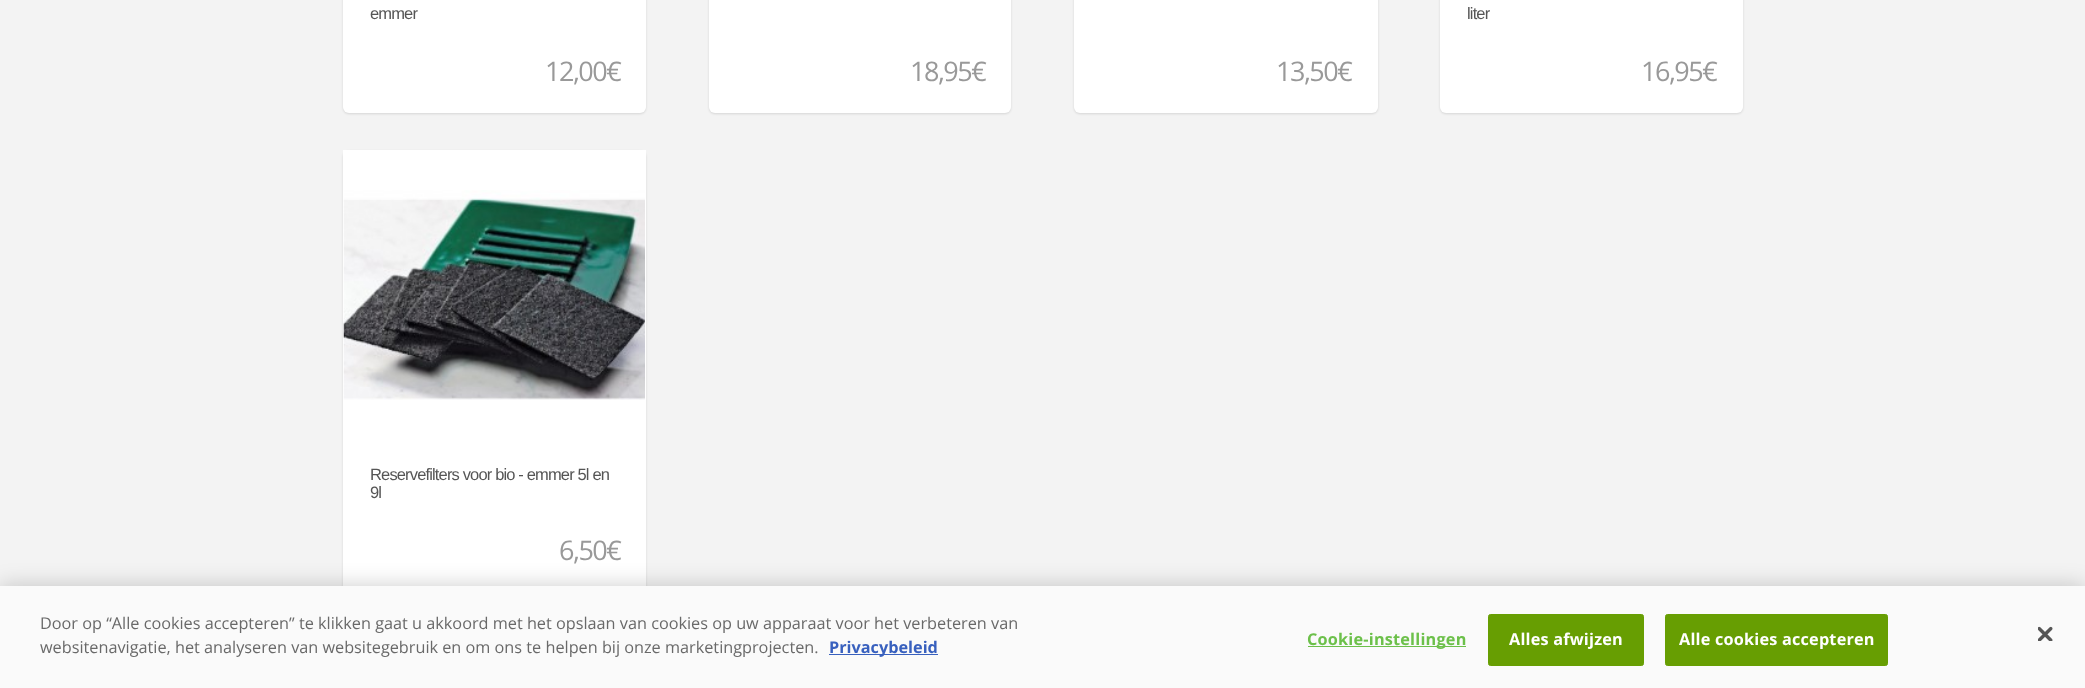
async function draw(canvas) {
  canvas.width = 2085;
  canvas.height = 688;
  const ctx = canvas.getContext('2d');
  ctx.miterLimit = 4;
  ctx.fontKerning = 'normal';
  function label(s, x, y, font, color) {
    ctx.font = font;
    ctx.fillStyle = color;
    ctx.fillText(s, x, y);
  }
  function rect(x, y, w, h, color) {
    ctx.fillStyle = color;
    ctx.fillRect(x, y, w, h);
  }
  function roundedRect(x, y, w, h, r, color) {
    ctx.fillStyle = color;
    ctx.beginPath();
    ctx.roundRect(x, y, w, h, r);
    ctx.fill();
  }
  async function image(src, x, y, w, h) {
    const img = new Image();
    img.src = src;
    await img.decode();
    ctx.drawImage(img, x, y, w, h);
  }

  rect(0, 0, 2085, 688, '#f3f3f3');
  ctx.fillStyle = '#0000001f';
  ctx.filter = 'blur(1px)';
  ctx.beginPath();
  ctx.roundRect(343, -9, 303, 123, 6);
  ctx.fill();
  ctx.filter = 'none';
  roundedRect(343, -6, 303, 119, 6, '#fff');
  ctx.letterSpacing = '-0.85px';
  label('emmer', 370, 19, '16.5px Liberation Sans', '#555');
  ctx.letterSpacing = '-1.5px';
  label('12,00€', 545, 81, '27px Open Sans', '#999');
  ctx.fillStyle = '#0000001f';
  ctx.filter = 'blur(1px)';
  ctx.beginPath();
  ctx.roundRect(709, -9, 302, 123, 6);
  ctx.fill();
  ctx.filter = 'none';
  roundedRect(709, -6, 302, 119, 6, '#fff');
  label('18,95€', 910, 81, '27px Open Sans', '#999');
  ctx.fillStyle = '#0000001f';
  ctx.filter = 'blur(1px)';
  ctx.beginPath();
  ctx.roundRect(1074, -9, 304, 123, 6);
  ctx.fill();
  ctx.filter = 'none';
  roundedRect(1074, -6, 304, 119, 6, '#fff');
  label('13,50€', 1276, 81, '27px Open Sans', '#999');
  ctx.fillStyle = '#0000001f';
  ctx.filter = 'blur(1px)';
  ctx.beginPath();
  ctx.roundRect(1440, -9, 303, 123, 6);
  ctx.fill();
  ctx.filter = 'none';
  roundedRect(1440, -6, 303, 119, 6, '#fff');
  ctx.letterSpacing = '-0.85px';
  label('liter', 1467, 19, '16.5px Liberation Sans', '#555');
  ctx.letterSpacing = '-1.5px';
  label('16,95€', 1641, 81, '27px Open Sans', '#999');
  ctx.fillStyle = '#0000001f';
  ctx.filter = 'blur(1px)';
  ctx.beginPath();
  ctx.roundRect(343, 151, 303, 443, 6);
  ctx.fill();
  ctx.filter = 'none';
  rect(343, 150, 303, 436, '#fff');
  await image('assets/img1.png', 343, 190, 302, 210);
  ctx.letterSpacing = '-0.85px';
  label('Reservefilters voor bio - emmer 5l en', 370, 480, '16.5px Liberation Sans', '#555');
  label('9l', 370, 498, '16.5px Liberation Sans', '#555');
  ctx.letterSpacing = '-1.5px';
  label('6,50€', 559, 560, '27px Open Sans', '#999');
  ctx.fillStyle = '#00000033';
  ctx.filter = 'blur(11px)';
  ctx.beginPath();
  ctx.rect(0, 586, 2085, 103);
  ctx.fill();
  ctx.filter = 'none';
  rect(0, 586, 2085, 102, '#fafafa');
  ctx.letterSpacing = '0px';
  label('Door op “Alle cookies accepteren” te klikken gaat u akkoord met het opslaan van cookies op uw apparaat voor het verbeteren van', 40, 629, '16.25px Open Sans', '#696969');
  label('websitenavigatie, het analyseren van websitegebruik en om ons te helpen bij onze marketingprojecten.', 40, 653, '16.25px Open Sans', '#696969');
  rect(829, 654, 109, 1, '#3860be');
  label('Privacybeleid', 829, 653, 'bold 16.25px Open Sans', '#3860be');
  rect(1308, 646, 158, 1, '#6cc04a');
  ctx.letterSpacing = '0.2px';
  label('Cookie-instellingen', 1307, 645, 'bold 16.25px Open Sans', '#6cc04a');
  ctx.fillStyle = '#679e02';
  ctx.beginPath();
  ctx.roundRect(1488.5, 614.5, 155, 51, 2);
  ctx.fill();
  ctx.strokeStyle = '#679e02';
  ctx.stroke();
  label('Alles afwijzen', 1509, 645, 'bold 16.25px Open Sans', '#fff');
  ctx.fillStyle = '#679e02';
  ctx.beginPath();
  ctx.roundRect(1665.5, 614.5, 222, 51, 2);
  ctx.fill();
  ctx.stroke();
  label('Alle cookies accepteren', 1679, 645, 'bold 16.25px Open Sans', '#fff');
  await image('assets/img2.png', 2038, 626, 15, 15);
}

draw(document.querySelector('canvas'));
